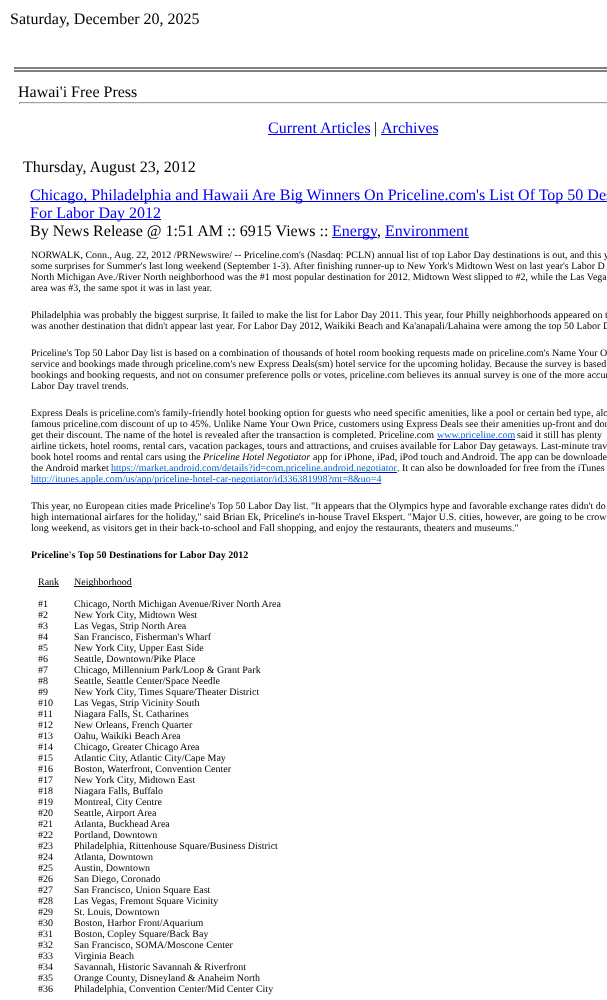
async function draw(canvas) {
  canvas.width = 607;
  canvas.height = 1000;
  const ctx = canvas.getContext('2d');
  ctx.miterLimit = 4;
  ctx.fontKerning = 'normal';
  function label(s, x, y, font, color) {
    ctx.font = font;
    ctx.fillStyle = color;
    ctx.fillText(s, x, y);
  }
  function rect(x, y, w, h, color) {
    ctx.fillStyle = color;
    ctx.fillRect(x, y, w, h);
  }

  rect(0, 0, 607, 1000, '#fff');
  label('Saturday, December 20, 2025', 10, 24, '16px Liberation Serif', '#000');
  rect(14, 67, 593, 2, '#808080');
  rect(14, 70, 593, 2, '#808080');
  label('Hawai\'i Free Press', 18, 97, '16px Liberation Serif', '#000');
  rect(19, 102, 588, 1, '#9f9f9f');
  rect(19, 103, 588, 1, '#eee');
  rect(19, 102, 1, 2, '#9f9f9f');
  label('Current', 268, 133, '16px Liberation Serif', '#00e');
  rect(268, 134, 102, 1, '#00e');
  label('Articles', 320, 133, '16px Liberation Serif', '#00e');
  label('|', 374, 133, '16px Liberation Serif', '#000');
  label('Archives', 381, 133, '16px Liberation Serif', '#00e');
  rect(381, 134, 57, 1, '#00e');
  label('Thursday, August 23, 2012', 23, 172, '16px Liberation Serif', '#000');
  rect(30, 201, 577, 1, '#00e');
  label('Chicago, Philadelphia and Hawaii Are Big Winners On Priceline.com\'s List Of Top 50 Des', 30, 200, '16px Liberation Serif', '#00e');
  rect(30, 219, 131, 1, '#00e');
  label('For Labor Day 2012', 30, 218, '16px Liberation Serif', '#00e');
  label('By News Release @ 1:51 AM :: 6915 Views ::', 30, 236, '16px Liberation Serif', '#000');
  rect(332, 237, 45, 1, '#00e');
  label('Energy', 332, 236, '16px Liberation Serif', '#00e');
  label('Environment', 385, 236, '16px Liberation Serif', '#00e');
  rect(385, 237, 84, 1, '#00e');
  label(',', 377, 236, '16px Liberation Serif', '#000');
  label('NORWALK, Conn.,', 31, 258, '10px Liberation Serif', '#000');
  label('Aug. 22, 2012 /PRNewswire/ -- Priceline.com\'s (Nasdaq: PCLN) annual list of top Labor Day destinations is out, and this y', 114, 258, '10px Liberation Serif', '#000');
  label('some surprises for Summer\'s last long weekend (September 1-3). After finishing runner-up to New York\'s Midtown West on last year\'s Labor D', 31, 269, '10px Liberation Serif', '#000');
  label('North Michigan Ave./River North neighborhood was the #1 most popular destination for 2012. Midtown West slipped to #2, while the Las Vega', 31, 280, '10px Liberation Serif', '#000');
  label('area was #3, the same spot it was in last year.', 31, 291, '10px Liberation Serif', '#000');
  label('Philadelphia was probably the biggest surprise. It failed to make the list for Labor Day 2011. This year, four Philly neighborhoods appeared on t', 31, 318, '10px Liberation Serif', '#000');
  label('was another destination that didn\'t appear last year. For Labor Day 2012, Waikiki Beach and Ka\'anapali/Lahaina were among the top 50 Labor D', 31, 329, '10px Liberation Serif', '#000');
  label('Priceline\'s Top 50 Labor Day list is based on a combination of thousands of hotel room booking requests made on priceline.com\'s Name Your O', 31, 356, '10px Liberation Serif', '#000');
  label('service and bookings made through priceline.com\'s new Express Deals(sm) hotel service for the upcoming holiday. Because the survey is based', 31, 367, '10px Liberation Serif', '#000');
  label('bookings and booking requests, and not on consumer preference polls or votes, priceline.com believes its annual survey is one of the more accur', 31, 378, '10px Liberation Serif', '#000');
  label('Labor Day travel trends.', 31, 389, '10px Liberation Serif', '#000');
  label('Express Deals is priceline.com\'s family-friendly hotel booking option for guests who need specific amenities, like a pool or certain bed type, alo', 31, 416, '10px Liberation Serif', '#000');
  label('famous priceline.com discount of up to 45%. Unlike Name Your Own Price, customers using Express Deals see their amenities up-front and don', 31, 427, '10px Liberation Serif', '#000');
  label('get their discount. The name of the hotel is revealed after the transaction is completed. Priceline.com', 31, 438, '10px Liberation Serif', '#000');
  rect(437, 439, 78, 1, '#00e');
  label('www.priceline.com', 437, 438, '10px Liberation Serif', '#06c');
  label('said it still has plenty', 517, 438, '10px Liberation Serif', '#000');
  label('airline tickets, hotel rooms, rental cars, vacation packages, tours and attractions, and cruises available for Labor Day getaways. Last-minute trav', 31, 449, '10px Liberation Serif', '#000');
  label('book hotel rooms and rental cars using the', 31, 460, '10px Liberation Serif', '#000');
  label('Priceline Hotel Negotiator', 203, 460, 'italic 10px Liberation Serif', '#000');
  label('app for iPhone, iPad, iPod touch and Android. The app can be downloade', 313, 460, '10px Liberation Serif', '#000');
  label('the Android market', 31, 471, '10px Liberation Serif', '#000');
  rect(111, 472, 286, 1, '#00e');
  label('https://market.android.com/details?id=com.priceline.android.negotiator', 111, 471, '10px Liberation Serif', '#06c');
  label('. It can also be downloaded for free from the iTunes', 397, 471, '10px Liberation Serif', '#000');
  rect(31, 483, 350, 1, '#00e');
  label('http://itunes.apple.com/us/app/priceline-hotel-car-negotiator/id336381998?mt=8&uo=4', 31, 482, '10px Liberation Serif', '#06c');
  label('This year, no European cities made Priceline\'s Top 50 Labor Day list. "It appears that the Olympics hype and favorable exchange rates didn\'t do', 31, 509, '10px Liberation Serif', '#000');
  label('high international airfares for the holiday," said Brian Ek, Priceline\'s in-house Travel Ekspert. "Major U.S. cities, however, are going to be crow', 31, 520, '10px Liberation Serif', '#000');
  label('long weekend, as visitors get in their back-to-school and Fall shopping, and enjoy the restaurants, theaters and museums."', 31, 531, '10px Liberation Serif', '#000');
  label('Priceline\'s Top 50 Destinations for Labor Day 2012', 31, 558, 'bold 10px Liberation Serif', '#000');
  label('Rank', 38, 585, '10px Liberation Serif', '#000');
  rect(38, 586, 21, 1, '#000');
  rect(74, 586, 58, 1, '#000');
  label('Neighborhood', 74, 585, '10px Liberation Serif', '#000');
  label('#1', 38, 607, '10px Liberation Serif', '#000');
  label('Chicago, North Michigan Avenue/River North Area', 74, 607, '10px Liberation Serif', '#000');
  label('#2', 38, 618, '10px Liberation Serif', '#000');
  label('New York City, Midtown West', 74, 618, '10px Liberation Serif', '#000');
  label('#3', 38, 629, '10px Liberation Serif', '#000');
  label('Las Vegas, Strip North Area', 74, 629, '10px Liberation Serif', '#000');
  label('#4', 38, 640, '10px Liberation Serif', '#000');
  label('San Francisco, Fisherman\'s Wharf', 74, 640, '10px Liberation Serif', '#000');
  label('#5', 38, 651, '10px Liberation Serif', '#000');
  label('New York City, Upper East Side', 74, 651, '10px Liberation Serif', '#000');
  label('#6', 38, 662, '10px Liberation Serif', '#000');
  label('Seattle, Downtown/Pike Place', 74, 662, '10px Liberation Serif', '#000');
  label('#7', 38, 673, '10px Liberation Serif', '#000');
  label('Chicago, Millennium Park/Loop & Grant Park', 74, 673, '10px Liberation Serif', '#000');
  label('#8', 38, 684, '10px Liberation Serif', '#000');
  label('Seattle, Seattle Center/Space Needle', 74, 684, '10px Liberation Serif', '#000');
  label('#9', 38, 695, '10px Liberation Serif', '#000');
  label('New York City, Times Square/Theater District', 74, 695, '10px Liberation Serif', '#000');
  label('#10', 38, 706, '10px Liberation Serif', '#000');
  label('Las Vegas, Strip Vicinity South', 74, 706, '10px Liberation Serif', '#000');
  label('#11', 38, 717, '10px Liberation Serif', '#000');
  label('Niagara Falls, St. Catharines', 74, 717, '10px Liberation Serif', '#000');
  label('#12', 38, 728, '10px Liberation Serif', '#000');
  label('New Orleans, French Quarter', 74, 728, '10px Liberation Serif', '#000');
  label('#13', 38, 739, '10px Liberation Serif', '#000');
  label('Oahu, Waikiki Beach Area', 74, 739, '10px Liberation Serif', '#000');
  label('#14', 38, 750, '10px Liberation Serif', '#000');
  label('Chicago, Greater Chicago Area', 74, 750, '10px Liberation Serif', '#000');
  label('#15', 38, 761, '10px Liberation Serif', '#000');
  label('Atlantic City, Atlantic City/Cape May', 74, 761, '10px Liberation Serif', '#000');
  label('#16', 38, 772, '10px Liberation Serif', '#000');
  label('Boston, Waterfront, Convention Center', 74, 772, '10px Liberation Serif', '#000');
  label('#17', 38, 783, '10px Liberation Serif', '#000');
  label('New York City, Midtown East', 74, 783, '10px Liberation Serif', '#000');
  label('#18', 38, 794, '10px Liberation Serif', '#000');
  label('Niagara Falls, Buffalo', 74, 794, '10px Liberation Serif', '#000');
  label('#19', 38, 805, '10px Liberation Serif', '#000');
  label('Montreal, City Centre', 74, 805, '10px Liberation Serif', '#000');
  label('#20', 38, 816, '10px Liberation Serif', '#000');
  label('Seattle, Airport Area', 74, 816, '10px Liberation Serif', '#000');
  label('#21', 38, 827, '10px Liberation Serif', '#000');
  label('Atlanta, Buckhead Area', 74, 827, '10px Liberation Serif', '#000');
  label('#22', 38, 838, '10px Liberation Serif', '#000');
  label('Portland, Downtown', 74, 838, '10px Liberation Serif', '#000');
  label('#23', 38, 849, '10px Liberation Serif', '#000');
  label('Philadelphia, Rittenhouse Square/Business District', 74, 849, '10px Liberation Serif', '#000');
  label('#24', 38, 860, '10px Liberation Serif', '#000');
  label('Atlanta, Downtown', 74, 860, '10px Liberation Serif', '#000');
  label('#25', 38, 871, '10px Liberation Serif', '#000');
  label('Austin, Downtown', 74, 871, '10px Liberation Serif', '#000');
  label('#26', 38, 882, '10px Liberation Serif', '#000');
  label('San Diego, Coronado', 74, 882, '10px Liberation Serif', '#000');
  label('#27', 38, 893, '10px Liberation Serif', '#000');
  label('San Francisco, Union Square East', 74, 893, '10px Liberation Serif', '#000');
  label('#28', 38, 904, '10px Liberation Serif', '#000');
  label('Las Vegas, Fremont Square Vicinity', 74, 904, '10px Liberation Serif', '#000');
  label('#29', 38, 915, '10px Liberation Serif', '#000');
  label('St. Louis, Downtown', 74, 915, '10px Liberation Serif', '#000');
  label('#30', 38, 926, '10px Liberation Serif', '#000');
  label('Boston, Harbor Front/Aquarium', 74, 926, '10px Liberation Serif', '#000');
  label('#31', 38, 937, '10px Liberation Serif', '#000');
  label('Boston, Copley Square/Back Bay', 74, 937, '10px Liberation Serif', '#000');
  label('#32', 38, 948, '10px Liberation Serif', '#000');
  label('San Francisco, SOMA/Moscone Center', 74, 948, '10px Liberation Serif', '#000');
  label('#33', 38, 959, '10px Liberation Serif', '#000');
  label('Virginia Beach', 74, 959, '10px Liberation Serif', '#000');
  label('#34', 38, 970, '10px Liberation Serif', '#000');
  label('Savannah, Historic Savannah & Riverfront', 74, 970, '10px Liberation Serif', '#000');
  label('#35', 38, 981, '10px Liberation Serif', '#000');
  label('Orange County, Disneyland & Anaheim North', 74, 981, '10px Liberation Serif', '#000');
  label('#36', 38, 992, '10px Liberation Serif', '#000');
  label('Philadelphia, Convention Center/Mid Center City', 74, 992, '10px Liberation Serif', '#000');
}

draw(document.querySelector('canvas'));
